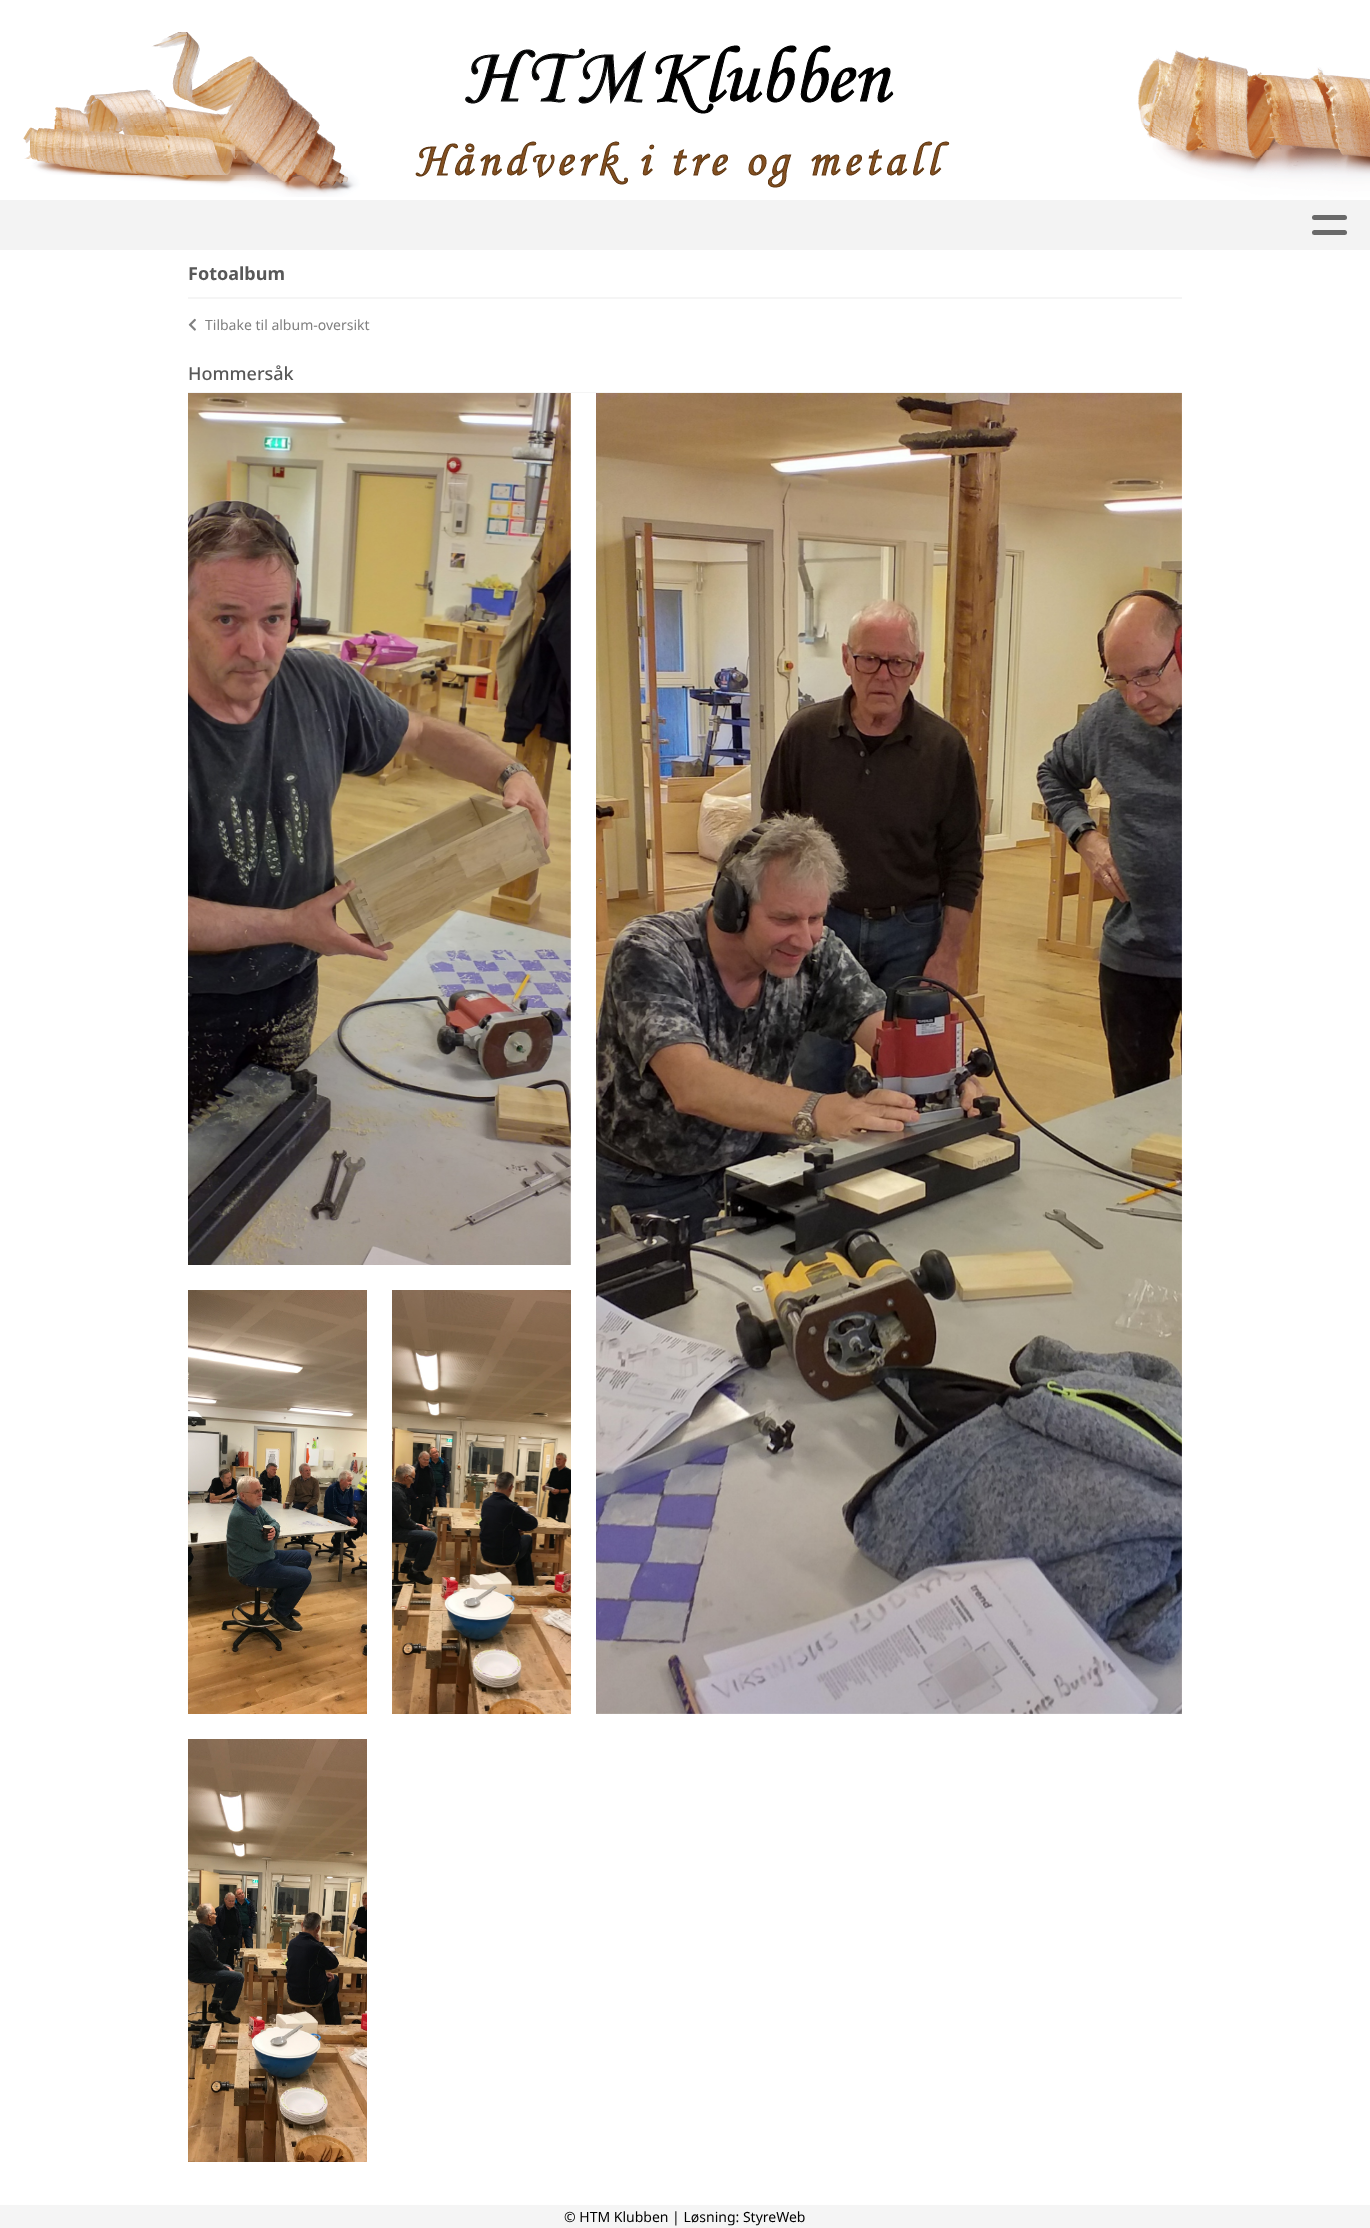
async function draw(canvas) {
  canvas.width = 1370;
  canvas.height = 2228;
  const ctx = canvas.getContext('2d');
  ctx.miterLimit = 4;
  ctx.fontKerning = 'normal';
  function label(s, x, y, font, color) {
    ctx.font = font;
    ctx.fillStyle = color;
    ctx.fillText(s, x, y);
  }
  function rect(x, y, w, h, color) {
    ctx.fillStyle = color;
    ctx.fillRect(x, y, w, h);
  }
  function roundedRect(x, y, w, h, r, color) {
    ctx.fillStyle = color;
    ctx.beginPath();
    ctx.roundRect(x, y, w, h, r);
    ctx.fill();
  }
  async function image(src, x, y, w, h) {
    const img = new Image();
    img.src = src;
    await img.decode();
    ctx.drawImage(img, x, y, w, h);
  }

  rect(0, 0, 1370, 2228, '#fff');
  await image('assets/img1.png', 23, 32, 1347, 165);
  rect(0, 200, 1370, 50, '#f3f3f3');
  roundedRect(1312, 215, 35, 5, 2.5, '#696969');
  roundedRect(1312, 230, 35, 5, 2.5, '#696969');
  rect(188, 297, 994, 2, '#f5f5f5');
  label('Fotoalbum', 188, 280, 'bold 18px Noto Sans', '#585858');
  await image('assets/img2.png', 188, 318, 8, 13);
  label('Tilbake til album-oversikt', 205, 330, '14px Noto Sans', '#808080');
  rect(188, 392, 994, 1, '#f5f5f5');
  label('Hommersåk', 188, 380, '500 18px Noto Sans', '#585858');
  await image('assets/img3.png', 188, 393, 383, 872);
  await image('assets/img4.png', 596, 393, 586, 1321);
  await image('assets/img5.png', 188, 1290, 179, 424);
  await image('assets/img6.png', 392, 1290, 179, 424);
  await image('assets/img7.png', 188, 1739, 179, 423);
  rect(0, 2205, 1370, 23, '#f5f5f5');
  label('© HTM Klubben | Løsning: StyreWeb', 564, 2222, '14px Noto Sans', '#000');
}

draw(document.querySelector('canvas'));
